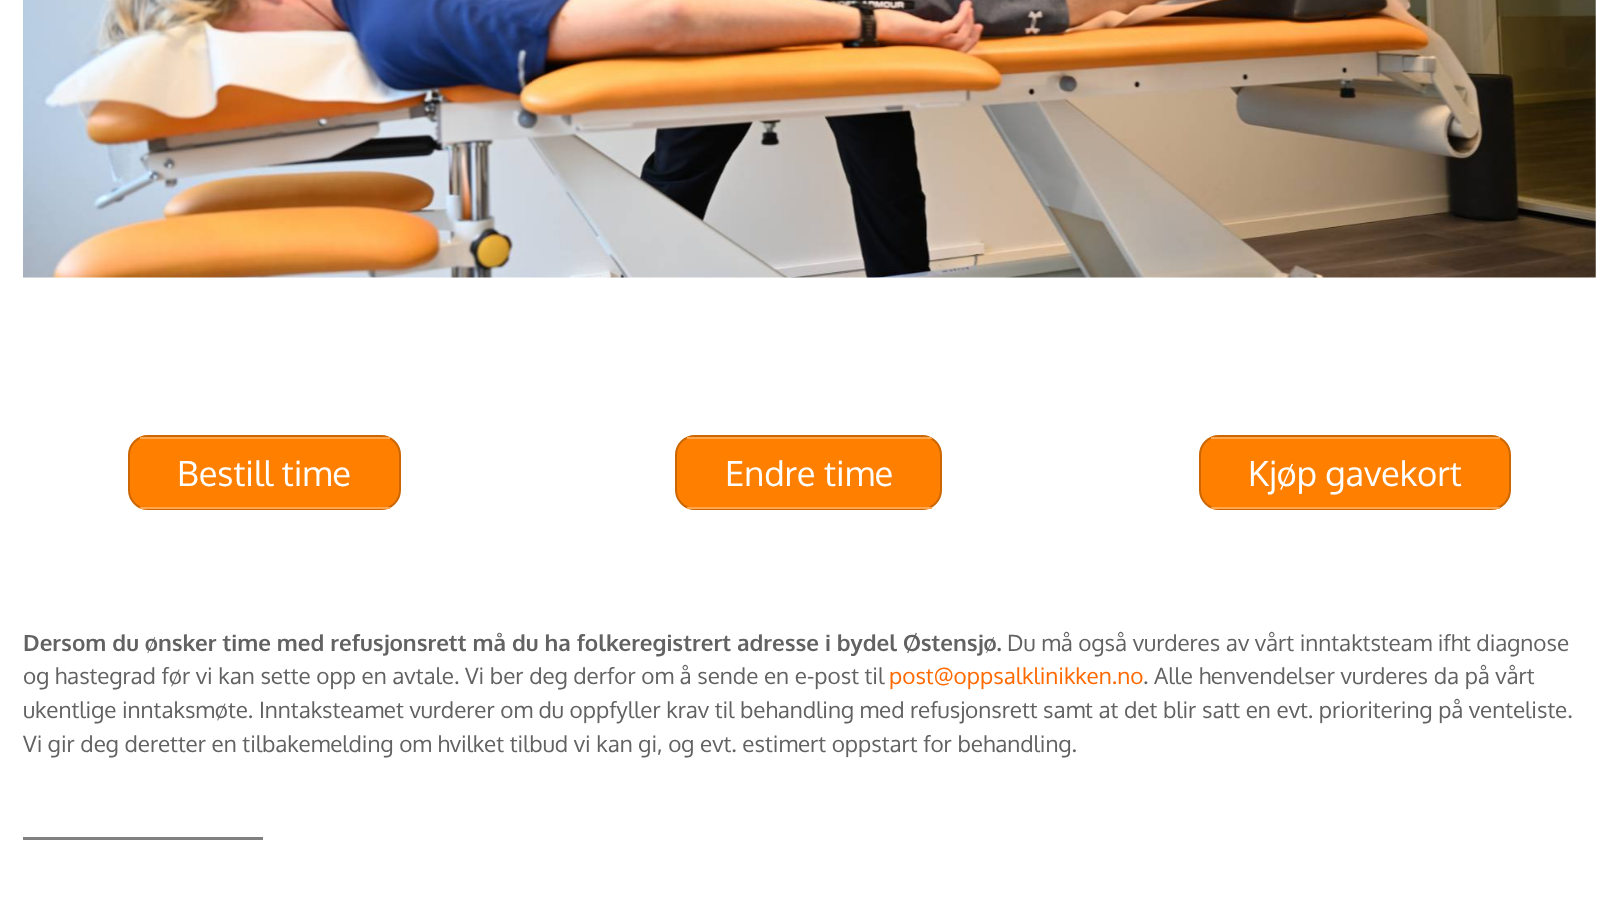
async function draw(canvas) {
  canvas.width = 1618;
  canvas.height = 899;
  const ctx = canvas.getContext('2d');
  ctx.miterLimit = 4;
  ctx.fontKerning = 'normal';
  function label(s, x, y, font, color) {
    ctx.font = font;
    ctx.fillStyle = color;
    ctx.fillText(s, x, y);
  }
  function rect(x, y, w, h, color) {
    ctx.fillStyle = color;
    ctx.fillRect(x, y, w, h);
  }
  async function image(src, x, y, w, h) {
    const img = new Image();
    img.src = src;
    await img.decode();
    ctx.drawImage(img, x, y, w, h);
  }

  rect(0, 0, 1618, 899, '#fff');
  await image('assets/img1.png', 23, 0, 1573, 278);
  ctx.fillStyle = '#ff7f00';
  ctx.beginPath();
  ctx.roundRect(129, 436, 271, 73, 19);
  ctx.fill();
  ctx.strokeStyle = '#c60';
  ctx.lineWidth = 2;
  ctx.stroke();
  rect(140, 437, 250, 2, '#ffa64d');
  rect(140, 507, 250, 2, '#ffa64d');
  label('Bestill time', 177, 486, '34.5px Oxygen', '#fff');
  ctx.fillStyle = '#ff7f00';
  ctx.beginPath();
  ctx.roundRect(676, 436, 265, 73, 19);
  ctx.fill();
  ctx.stroke();
  rect(687, 437, 245, 2, '#ffa64d');
  rect(687, 507, 245, 2, '#ffa64d');
  label('Endre time', 725, 486, '34.5px Oxygen', '#fff');
  ctx.fillStyle = '#ff7f00';
  ctx.beginPath();
  ctx.roundRect(1200, 436, 310, 73, 19);
  ctx.fill();
  ctx.stroke();
  rect(1211, 437, 289, 2, '#ffa64d');
  rect(1211, 507, 289, 2, '#ffa64d');
  label('Kjøp gavekort', 1248, 486, '34.5px Oxygen', '#fff');
  label('Dersom du ønsker time med refusjonsrett må du ha folkeregistrert adresse i bydel Østensjø.', 23, 651, 'bold 22.5px Oxygen', '#626262');
  label('Du må også vurderes av vårt inntaktsteam ifht diagnose', 1007, 651, '22.5px Oxygen', '#626262');
  label('og hastegrad før vi kan sette opp en avtale. Vi ber deg derfor om å sende en e-post til', 23, 684, '22.5px Oxygen', '#626262');
  label('post@oppsalklinikken.no', 889, 684, '22.5px Oxygen', '#ff6900');
  label('. Alle henvendelser vurderes da på vårt', 1143, 684, '22.5px Oxygen', '#626262');
  label('ukentlige inntaksmøte. Inntaksteamet vurderer om du oppfyller krav til behandling med refusjonsrett samt at det blir satt en evt. prioritering på venteliste.', 23, 718, '22.5px Oxygen', '#626262');
  label('Vi gir deg deretter en tilbakemelding om hvilket tilbud vi kan gi, og evt. estimert oppstart for behandling.', 23, 752, '22.5px Oxygen', '#626262');
  rect(23, 837, 240, 3, '#808080');
}

draw(document.querySelector('canvas'));
